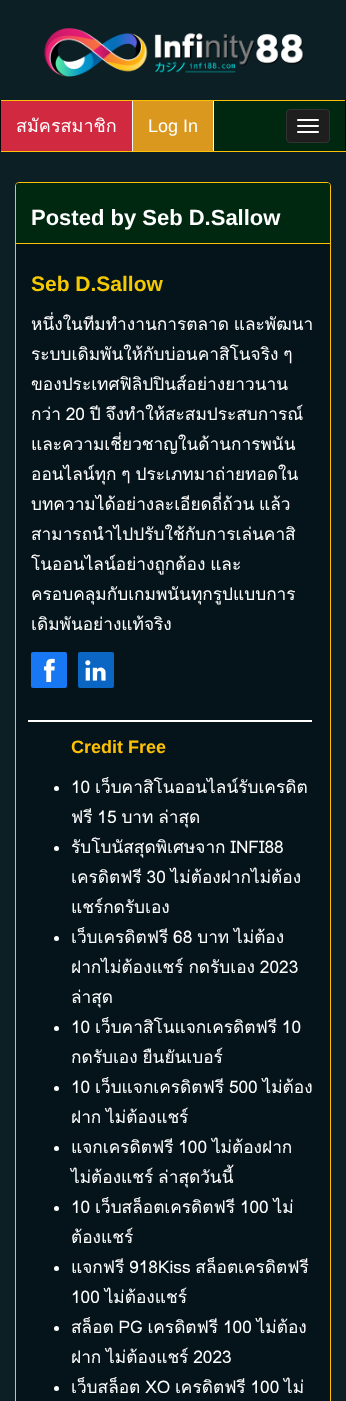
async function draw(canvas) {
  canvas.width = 346;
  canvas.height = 1401;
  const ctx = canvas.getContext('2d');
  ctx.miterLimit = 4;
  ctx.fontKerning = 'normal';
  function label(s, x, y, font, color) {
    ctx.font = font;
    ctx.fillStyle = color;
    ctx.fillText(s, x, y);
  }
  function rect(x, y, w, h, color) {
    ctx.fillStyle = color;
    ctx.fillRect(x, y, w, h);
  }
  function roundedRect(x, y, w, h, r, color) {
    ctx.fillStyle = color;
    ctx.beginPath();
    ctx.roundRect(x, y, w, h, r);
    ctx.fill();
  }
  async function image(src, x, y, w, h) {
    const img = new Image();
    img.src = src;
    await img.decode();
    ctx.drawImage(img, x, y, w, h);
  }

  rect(0, 0, 346, 1401, '#0b1f24');
  await image('assets/img1.png', 44, 28, 260, 49);
  rect(214, 101, 131, 50, '#002710');
  rect(0, 100, 346, 1, '#ffc107');
  rect(345, 100, 1, 52, '#080808');
  rect(0, 151, 346, 1, '#ffc107');
  rect(0, 100, 1, 52, '#080808');
  rect(1, 101, 131, 50, '#d02940');
  rect(132, 101, 1, 50, '#fff');
  label('สมัครสมาชิก', 16, 132, '18px Loma', '#fff');
  rect(133, 101, 80, 50, '#da981f');
  rect(213, 101, 1, 50, '#fff');
  label('Log In', 148, 132, '18px Liberation Sans', '#fff');
  ctx.fillStyle = '#1e1e1e';
  ctx.beginPath();
  ctx.roundRect(286.5, 109.5, 43, 33, 3.5);
  ctx.fill();
  ctx.strokeStyle = '#333';
  ctx.stroke();
  roundedRect(297, 119, 22, 2, 1, '#fff');
  roundedRect(297, 125, 22, 2, 1, '#fff');
  roundedRect(297, 131, 22, 2, 1, '#fff');
  ctx.fillStyle = '#05141a';
  ctx.beginPath();
  ctx.roundRect(15.5, 182.5, 315, 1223, 3.5);
  ctx.fill();
  ctx.strokeStyle = '#ffc107';
  ctx.stroke();
  ctx.fillStyle = '#002710';
  ctx.beginPath();
  ctx.roundRect(16, 183, 314, 61, [3, 3, 0, 0]);
  ctx.fill();
  rect(16, 243, 314, 1, '#ffc107');
  label('Posted by Seb D.Sallow', 31, 225, 'bold 22px Liberation Sans', '#fff');
  label('Seb D.Sallow', 31, 291, 'bold 21px Liberation Sans', '#f5c902');
  ctx.wordSpacing = '-1px';
  label('หนึ่งในทีมทำงานการตลาด และพัฒนา', 31, 330, '17.3px Loma', '#fff');
  label('ระบบเดิมพันให้กับบ่อนคาสิโนจริง ๆ', 31, 360, '17.3px Loma', '#fff');
  ctx.wordSpacing = '0px';
  label('ของประเทศฟิลิปปินส์อย่างยาวนาน', 31, 390, '17.3px Loma', '#fff');
  ctx.wordSpacing = '-1px';
  label('กว่า 20 ปี จึงทำให้สะสมประสบการณ์', 31, 420, '17.3px Loma', '#fff');
  ctx.wordSpacing = '0px';
  label('และความเชี่ยวชาญในด้านการพนัน', 31, 450, '17.3px Loma', '#fff');
  ctx.wordSpacing = '-1px';
  label('ออนไลน์ทุก ๆ ประเภทมาถ่ายทอดใน', 31, 480, '17.3px Loma', '#fff');
  label('บทความได้อย่างละเอียดถี่ถ้วน แล้ว', 31, 510, '17.3px Loma', '#fff');
  ctx.wordSpacing = '0px';
  label('สามารถนำไปปรับใช้กับการเล่นคาสิ', 31, 540, '17.3px Loma', '#fff');
  ctx.wordSpacing = '-1px';
  label('โนออนไลน์อย่างถูกต้อง และ', 31, 570, '17.3px Loma', '#fff');
  ctx.wordSpacing = '0px';
  label('ครอบคลุมกับเกมพนันทุกรูปแบบการ', 31, 600, '17.3px Loma', '#fff');
  label('เดิมพันอย่างแท้จริง', 31, 630, '17.3px Loma', '#fff');
  rect(28, 720, 284, 2, '#fff');
  roundedRect(31, 652, 36, 36, 2, '#1877f2');
  await image('assets/img2.png', 44, 658, 11, 24);
  roundedRect(78, 652, 36, 36, 2, '#0a66c2');
  await image('assets/img3.png', 85, 660, 21, 21);
  label('Credit Free', 71, 753, 'bold 18px Liberation Sans', '#ffc107');
  ctx.fillStyle = '#fff';
  ctx.beginPath();
  ctx.arc(56.5, 788.5, 2.5, 0, 2 * Math.PI);
  ctx.fill();
  ctx.wordSpacing = '-1px';
  label('10 เว็บคาสิโนออนไลน์รับเครดิต', 71, 793, '17.3px Loma', '#fff');
  label('ฟรี 15 บาท ล่าสุด', 71, 823, '17.3px Loma', '#fff');
  ctx.beginPath();
  ctx.arc(56.5, 848.5, 2.5, 0, 2 * Math.PI);
  ctx.fill();
  label('รับโบนัสสุดพิเศษจาก INFI88', 71, 853, '17.3px Loma', '#fff');
  label('เครดิตฟรี 30 ไม่ต้องฝากไม่ต้อง', 71, 883, '17.3px Loma', '#fff');
  ctx.wordSpacing = '0px';
  label('แชร์กดรับเอง', 71, 913, '17.3px Loma', '#fff');
  ctx.beginPath();
  ctx.arc(56.5, 938.5, 2.5, 0, 2 * Math.PI);
  ctx.fill();
  ctx.wordSpacing = '-1px';
  label('เว็บเครดิตฟรี 68 บาท ไม่ต้อง', 71, 943, '17.3px Loma', '#fff');
  label('ฝากไม่ต้องแชร์ กดรับเอง 2023', 71, 973, '17.3px Loma', '#fff');
  ctx.wordSpacing = '0px';
  label('ล่าสุด', 71, 1003, '17.3px Loma', '#fff');
  ctx.beginPath();
  ctx.arc(56.5, 1028.5, 2.5, 0, 2 * Math.PI);
  ctx.fill();
  ctx.wordSpacing = '-1px';
  label('10 เว็บคาสิโนแจกเครดิตฟรี 10', 71, 1033, '17.3px Loma', '#fff');
  label('กดรับเอง ยืนยันเบอร์', 71, 1063, '17.3px Loma', '#fff');
  ctx.beginPath();
  ctx.arc(56.5, 1088.5, 2.5, 0, 2 * Math.PI);
  ctx.fill();
  label('10 เว็บแจกเครดิตฟรี 500 ไม่ต้อง', 71, 1093, '17.3px Loma', '#fff');
  label('ฝาก ไม่ต้องแชร์', 71, 1123, '17.3px Loma', '#fff');
  ctx.beginPath();
  ctx.arc(56.5, 1148.5, 2.5, 0, 2 * Math.PI);
  ctx.fill();
  label('แจกเครดิตฟรี 100 ไม่ต้องฝาก', 71, 1153, '17.3px Loma', '#fff');
  label('ไม่ต้องแชร์ ล่าสุดวันนี้', 71, 1183, '17.3px Loma', '#fff');
  ctx.beginPath();
  ctx.arc(56.5, 1208.5, 2.5, 0, 2 * Math.PI);
  ctx.fill();
  label('10 เว็บสล็อตเครดิตฟรี 100 ไม่', 71, 1213, '17.3px Loma', '#fff');
  ctx.wordSpacing = '0px';
  label('ต้องแชร์', 71, 1243, '17.3px Loma', '#fff');
  ctx.beginPath();
  ctx.arc(56.5, 1268.5, 2.5, 0, 2 * Math.PI);
  ctx.fill();
  ctx.wordSpacing = '-1px';
  label('แจกฟรี 918Kiss สล็อตเครดิตฟรี', 71, 1273, '17.3px Loma', '#fff');
  label('100 ไม่ต้องแชร์', 71, 1303, '17.3px Loma', '#fff');
  ctx.beginPath();
  ctx.arc(56.5, 1328.5, 2.5, 0, 2 * Math.PI);
  ctx.fill();
  label('สล็อต PG เครดิตฟรี 100 ไม่ต้อง', 71, 1333, '17.3px Loma', '#fff');
  label('ฝาก ไม่ต้องแชร์ 2023', 71, 1363, '17.3px Loma', '#fff');
  ctx.beginPath();
  ctx.arc(56.5, 1388.5, 2.5, 0, 2 * Math.PI);
  ctx.fill();
  label('เว็บสล็อต XO เครดิตฟรี 100 ไม่', 71, 1393, '17.3px Loma', '#fff');
}

draw(document.querySelector('canvas'));
